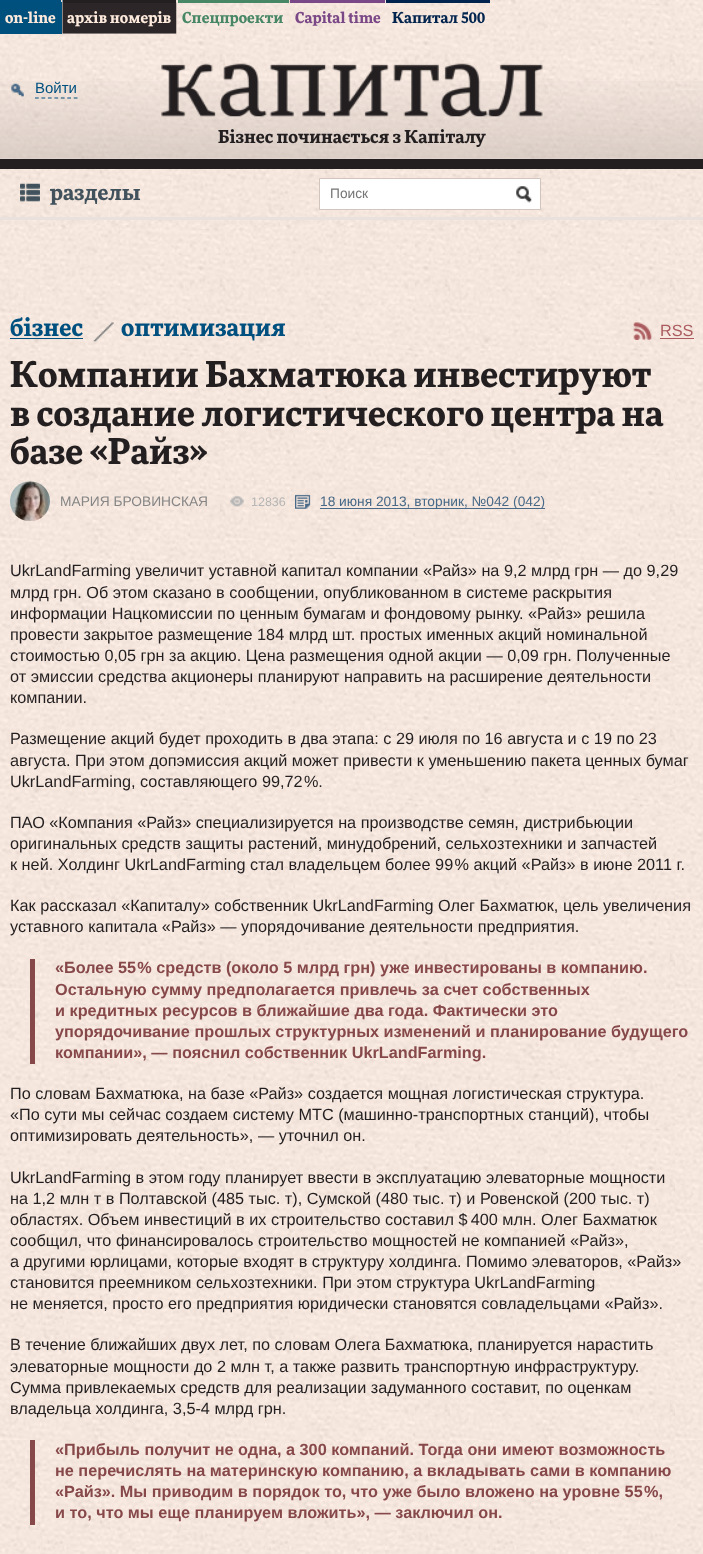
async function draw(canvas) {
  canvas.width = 703;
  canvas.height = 1554;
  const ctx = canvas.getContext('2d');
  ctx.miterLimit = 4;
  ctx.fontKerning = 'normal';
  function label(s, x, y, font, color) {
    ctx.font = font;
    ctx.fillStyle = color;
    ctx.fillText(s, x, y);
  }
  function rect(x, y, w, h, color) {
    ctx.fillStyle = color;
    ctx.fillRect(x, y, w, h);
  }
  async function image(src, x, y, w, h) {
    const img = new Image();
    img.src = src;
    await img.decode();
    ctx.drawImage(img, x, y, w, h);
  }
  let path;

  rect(0, 0, 703, 1554, '#fff');
  await image('assets/img1.png', 0, 0, 703, 1554);
  rect(0, 2, 62, 32, '#00507d');
  rect(0, 0, 61, 2, '#00507f');
  label('on-line', 5, 23, 'bold 15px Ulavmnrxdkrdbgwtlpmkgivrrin', '#feeadc');
  await image('assets/img2.png', 62, 0, 115, 34);
  rect(63, 0, 113, 3, '#231f20');
  label('архів номерів', 67, 23, 'bold 15px Ulavmnrxdkrdbgwtlpmkgivrrin', '#feeadc');
  rect(178, 0, 111, 3, '#488766');
  label('Спецпроекти', 182, 23, 'bold 15px Ulavmnrxdkrdbgwtlpmkgivrrin', '#488766');
  rect(290, 0, 95, 3, '#7a4887');
  label('Capital time', 295, 23, 'bold 15px Ulavmnrxdkrdbgwtlpmkgivrrin', '#7a4887');
  rect(386, 0, 104, 3, '#01244e');
  label('Капитал 500', 392, 23, 'bold 15px Ulavmnrxdkrdbgwtlpmkgivrrin', '#01244e');
  await image('assets/img3.png', 0, 81, 703, 78);
  rect(0, 159, 703, 10, '#231f20');
  await image('assets/img4.png', 11, 83, 13, 14);
  label('Войти', 35, 93, '15px Liberation Sans', '#00507f');
  path = new Path2D('M35 98H77.5');
  ctx.strokeStyle = '#00507f';
  ctx.lineWidth = 1.2;
  ctx.setLineDash([3.75, 2.71]);
  ctx.stroke(path);
  await image('assets/img5.png', 161, 63, 382, 54);
  label('Бізнес починається з Капіталу', 218, 143, 'bold 17.5px Ulavmnrxdkrdbgwtlpmkgivrrin', '#231f20');
  ctx.fillStyle = '#fff';
  ctx.beginPath();
  ctx.rect(319.5, 178.5, 221, 31);
  ctx.fill();
  ctx.strokeStyle = '#d1c5bd';
  ctx.lineWidth = 1;
  ctx.setLineDash([]);
  ctx.stroke();
  label('Поиск', 330, 198, '13.75px Liberation Sans', '#757575');
  await image('assets/img6.png', 516, 186, 16, 17);
  rect(0, 217, 703, 3, '#e8e1dd');
  await image('assets/img7.png', 20, 183, 20, 19);
  label('разделы', 50, 200, 'bold 21.25px Ulavmnrxdkrdbgwtlpmkgivrrin', '#41525c');
  label('бізнес', 10, 336, 'bold 23.75px Ulavmnrxdkrdbgwtlpmkgivrrin', '#00507f');
  rect(10, 338, 73, 1, '#00507f');
  await image('assets/img8.png', 93, 322, 21, 20);
  label('оптимизация', 121, 336, 'bold 23.75px Ulavmnrxdkrdbgwtlpmkgivrrin', '#00507f');
  await image('assets/img9.png', 633, 322, 19, 18);
  label('RSS', 660, 336, '16.25px Liberation Sans', '#ab5b5e');
  rect(660, 338, 34, 1, '#ab5b5e');
  label('Компании Бахматюка инвестируют', 10, 387, 'bold 35px Ulavmnrxdkrdbgwtlpmkgivrrin', '#231f20');
  label('в создание логистического центра на', 10, 426, 'bold 35px Ulavmnrxdkrdbgwtlpmkgivrrin', '#231f20');
  label('базе «Райз»', 10, 464, 'bold 35px Ulavmnrxdkrdbgwtlpmkgivrrin', '#231f20');
  await image('assets/img10.png', 10, 481, 40, 40);
  label('МАРИЯ БРОВИНСКАЯ', 60, 506, '13.75px Liberation Sans', '#868686');
  await image('assets/img11.png', 230, 495, 15, 12);
  label('12836', 251, 506, '12.5px Liberation Sans', '#b5b5b5');
  await image('assets/img12.png', 295, 494, 16, 15);
  rect(320, 508, 225, 1, '#486987');
  label('18 июня 2013, вторник, №042 (042)', 320, 506, '13.75px Liberation Sans', '#486987');
  label('UkrLandFarming увеличит уставной капитал компании «Райз» на 9,2 млрд грн — до 9,29', 10, 576, '16.25px Liberation Sans', '#231f20');
  label('млрд грн. Об этом сказано в сообщении, опубликованном в системе раскрытия', 10, 598, '16.25px Liberation Sans', '#231f20');
  label('информации Нацкомиссии по ценным бумагам и фондовому рынку. «Райз» решила', 10, 619, '16.25px Liberation Sans', '#231f20');
  label('провести закрытое размещение 184 млрд шт. простых именных акций номинальной', 10, 640, '16.25px Liberation Sans', '#231f20');
  label('стоимостью 0,05 грн за акцию. Цена размещения одной акции — 0,09 грн. Полученные', 10, 661, '16.25px Liberation Sans', '#231f20');
  label('от эмиссии средства акционеры планируют направить на расширение деятельности', 10, 682, '16.25px Liberation Sans', '#231f20');
  label('компании.', 10, 703, '16.25px Liberation Sans', '#231f20');
  label('Размещение акций будет проходить в два этапа: с 29 июля по 16 августа и с 19 по 23', 10, 744, '16.25px Liberation Sans', '#231f20');
  label('августа. При этом допэмиссия акций может привести к уменьшению пакета ценных бумаг', 10, 766, '16.25px Liberation Sans', '#231f20');
  label('UkrLandFarming, составляющего 99,72 %.', 10, 787, '16.25px Liberation Sans', '#231f20');
  label('ПАО «Компания «Райз» специализируется на производстве семян, дистрибьюции', 10, 828, '16.25px Liberation Sans', '#231f20');
  label('оригинальных средств защиты растений, минудобрений, сельхозтехники и запчастей', 10, 849, '16.25px Liberation Sans', '#231f20');
  label('к ней. Холдинг UkrLandFarming стал владельцем более 99 % акций «Райз» в июне 2011 г.', 10, 870, '16.25px Liberation Sans', '#231f20');
  label('Как рассказал «Капиталу» собственник UkrLandFarming Олег Бахматюк, цель увеличения', 10, 911, '16.25px Liberation Sans', '#231f20');
  label('уставного капитала «Райз» — упорядочивание деятельности предприятия.', 10, 932, '16.25px Liberation Sans', '#231f20');
  rect(30, 959, 5, 105, '#87484a');
  label('«Более 55 % средств (около 5 млрд грн) уже инвестированы в компанию.', 55, 973, 'bold 16.25px Liberation Sans', '#87484a');
  label('Остальную сумму предполагается привлечь за счет собственных', 55, 995, 'bold 16.25px Liberation Sans', '#87484a');
  label('и кредитных ресурсов в ближайшие два года. Фактически это', 55, 1016, 'bold 16.25px Liberation Sans', '#87484a');
  label('упорядочивание прошлых структурных изменений и планирование будущего', 55, 1037, 'bold 16.25px Liberation Sans', '#87484a');
  label('компании», — пояснил собственник UkrLandFarming.', 55, 1058, 'bold 16.25px Liberation Sans', '#87484a');
  label('По словам Бахматюка, на базе «Райз» создается мощная логистическая структура.', 10, 1099, '16.25px Liberation Sans', '#231f20');
  label('«По сути мы сейчас создаем систему МТС (машинно-транспортных станций), чтобы', 10, 1120, '16.25px Liberation Sans', '#231f20');
  label('оптимизировать деятельность», — уточнил он.', 10, 1141, '16.25px Liberation Sans', '#231f20');
  label('UkrLandFarming в этом году планирует ввести в эксплуатацию элеваторные мощности', 10, 1183, '16.25px Liberation Sans', '#231f20');
  label('на 1,2 млн т в Полтавской (485 тыс. т), Сумской (480 тыс. т) и Ровенской (200 тыс. т)', 10, 1204, '16.25px Liberation Sans', '#231f20');
  label('областях. Объем инвестиций в их строительство составил $ 400 млн. Олег Бахматюк', 10, 1225, '16.25px Liberation Sans', '#231f20');
  label('сообщил, что финансировалось строительство мощностей не компанией «Райз»,', 10, 1246, '16.25px Liberation Sans', '#231f20');
  label('а другими юрлицами, которые входят в структуру холдинга. Помимо элеваторов, «Райз»', 10, 1267, '16.25px Liberation Sans', '#231f20');
  label('становится преемником сельхозтехники. При этом структура UkrLandFarming', 10, 1288, '16.25px Liberation Sans', '#231f20');
  label('не меняется, просто его предприятия юридически становятся совладельцами «Райз».', 10, 1309, '16.25px Liberation Sans', '#231f20');
  label('В течение ближайших двух лет, по словам Олега Бахматюка, планируется нарастить', 10, 1350, '16.25px Liberation Sans', '#231f20');
  label('элеваторные мощности до 2 млн т, а также развить транспортную инфраструктуру.', 10, 1372, '16.25px Liberation Sans', '#231f20');
  label('Сумма привлекаемых средств для реализации задуманного составит, по оценкам', 10, 1393, '16.25px Liberation Sans', '#231f20');
  label('владельца холдинга, 3,5-4 млрд грн.', 10, 1414, '16.25px Liberation Sans', '#231f20');
  rect(30, 1440, 5, 85, '#87484a');
  label('«Прибыль получит не одна, а 300 компаний. Тогда они имеют возможность', 55, 1455, 'bold 16.25px Liberation Sans', '#87484a');
  label('не перечислять на материнскую компанию, а вкладывать сами в компанию', 55, 1476, 'bold 16.25px Liberation Sans', '#87484a');
  label('«Райз». Мы приводим в порядок то, что уже было вложено на уровне 55 %,', 55, 1497, 'bold 16.25px Liberation Sans', '#87484a');
  label('и то, что мы еще планируем вложить», — заключил он.', 55, 1518, 'bold 16.25px Liberation Sans', '#87484a');
}

draw(document.querySelector('canvas'));
